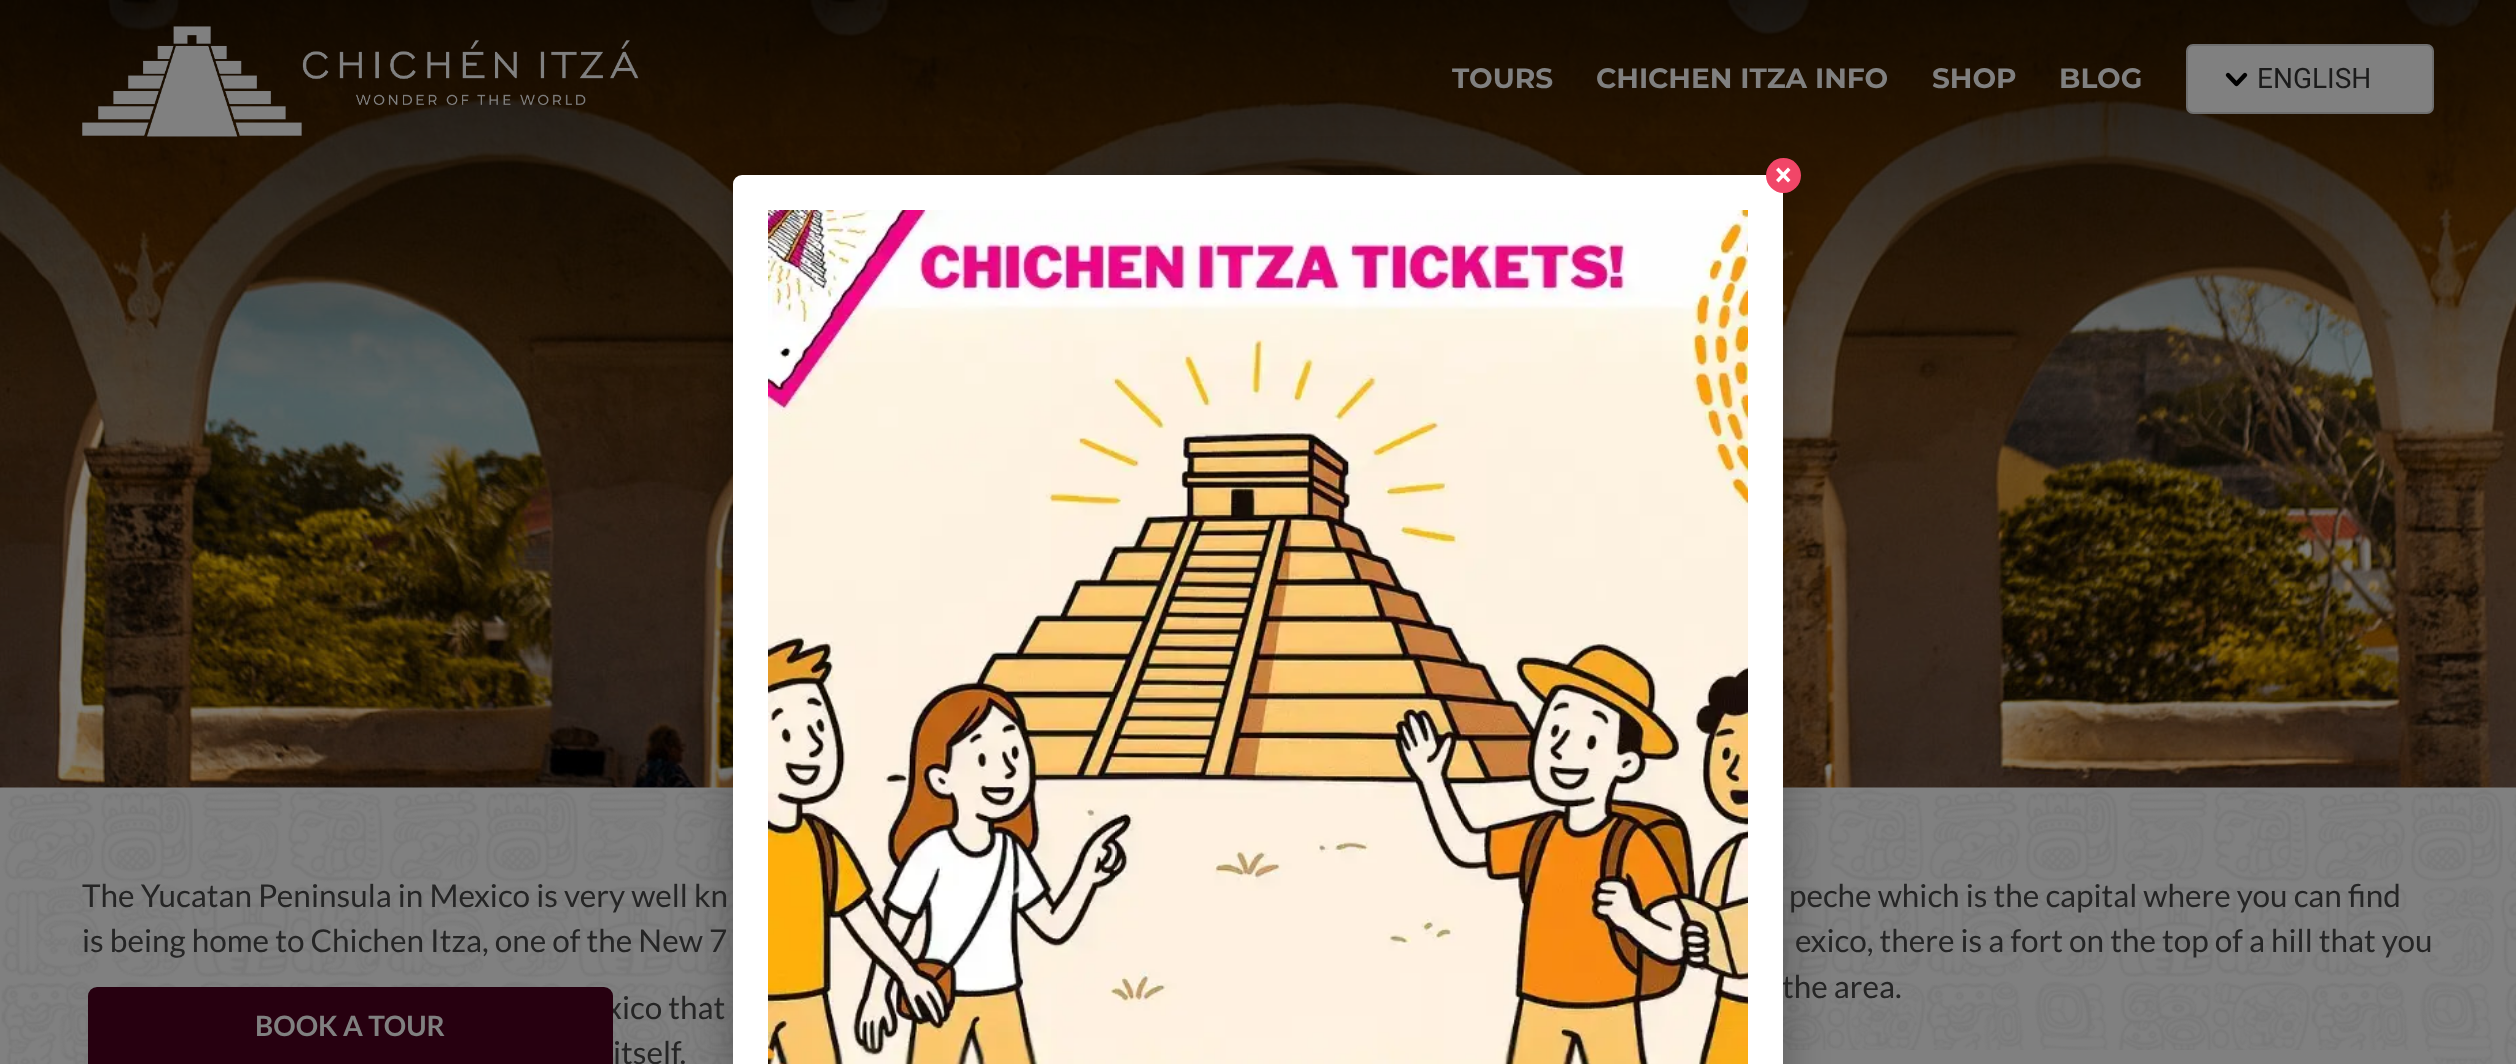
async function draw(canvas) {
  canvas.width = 2516;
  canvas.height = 1064;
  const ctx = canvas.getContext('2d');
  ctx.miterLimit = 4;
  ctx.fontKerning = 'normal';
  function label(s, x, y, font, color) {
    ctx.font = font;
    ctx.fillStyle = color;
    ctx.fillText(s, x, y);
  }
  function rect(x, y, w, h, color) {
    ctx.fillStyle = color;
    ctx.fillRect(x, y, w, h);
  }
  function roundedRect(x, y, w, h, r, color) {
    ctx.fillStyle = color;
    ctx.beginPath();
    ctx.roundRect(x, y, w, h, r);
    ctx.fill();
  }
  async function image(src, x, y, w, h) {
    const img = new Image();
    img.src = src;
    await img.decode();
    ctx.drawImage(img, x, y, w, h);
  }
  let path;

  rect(0, 0, 2516, 1064, '#808080');
  await image('assets/img1.png', 0, 0, 2516, 788);
  await image('assets/img2.png', 82, 26, 557, 111);
  label('TOURS', 1452, 88, 'bold 28px Montserrat', '#808080');
  label('CHICHEN ITZA INFO', 1596, 88, 'bold 28px Montserrat', '#808080');
  label('SHOP', 1932, 88, 'bold 28px Montserrat', '#808080');
  label('BLOG', 2059, 88, 'bold 28px Montserrat', '#808080');
  ctx.beginPath();
  ctx.roundRect(2187, 45, 246, 68, 6);
  ctx.fill();
  ctx.strokeStyle = '#6e6e6e';
  ctx.lineWidth = 2;
  ctx.stroke();
  path = new Path2D('M2228 75L2236.5 84M2236.5 84L2245 75');
  ctx.strokeStyle = '#000';
  ctx.lineWidth = 4.4;
  ctx.lineCap = 'round';
  ctx.lineJoin = 'round';
  ctx.stroke(path);
  label('ENGLISH', 2257, 88, '28px Roboto', '#1b1b1b');
  await image('assets/img4.png', 1, 789, 2515, 275);
  roundedRect(1279, 1050, 1155, 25, 11, '#808080');
  ctx.fillStyle = '#0000004d';
  ctx.filter = 'blur(22px)';
  ctx.beginPath();
  ctx.roundRect(733, 184, 1050, 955, 9);
  ctx.fill();
  ctx.filter = 'none';
  label('the area.', 1782, 998, '31.5px Lato', '#252525');
  roundedRect(733, 175, 1050, 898, 9, '#fff');
  ctx.fillStyle = '#f14668';
  ctx.beginPath();
  ctx.arc(1783.5, 175.5, 17.5, 0, 2 * Math.PI);
  ctx.fill();
  ctx.fillStyle = '#fff';
  path = new Path2D('M1778.5 167.5L1790.5 180L1788 182.5L1776 170Z');
  ctx.fill(path);
  path = new Path2D('M1788 167.5L1790.5 170L1778.5 182.5L1776 180Z');
  ctx.fill(path);
  await image('assets/img3.png', 768, 210, 980, 854);
  label('The Yucatan Peninsula in Mexico is very well kn', 82, 907, '31.5px Lato', '#252525');
  label('is being home to Chichen Itza, one of the New 7', 82, 952, '31.5px Lato', '#252525');
  label('xico that', 606, 1019, '31.5px Lato', '#252525');
  label('itself.', 613, 1064, '31.5px Lato', '#252525');
  label('peche which is the capital where you can find', 1789, 907, '31.5px Lato', '#252525');
  label('exico, there is a fort on the top of a hill that you', 1795, 952, '31.5px Lato', '#252525');
  ctx.fillStyle = '#270010';
  ctx.beginPath();
  ctx.roundRect(88, 987, 525, 77, [9, 9, 0, 0]);
  ctx.fill();
  label('BOOK A TOUR', 255, 1036, 'bold 28px Lato', '#808080');
}

draw(document.querySelector('canvas'));
